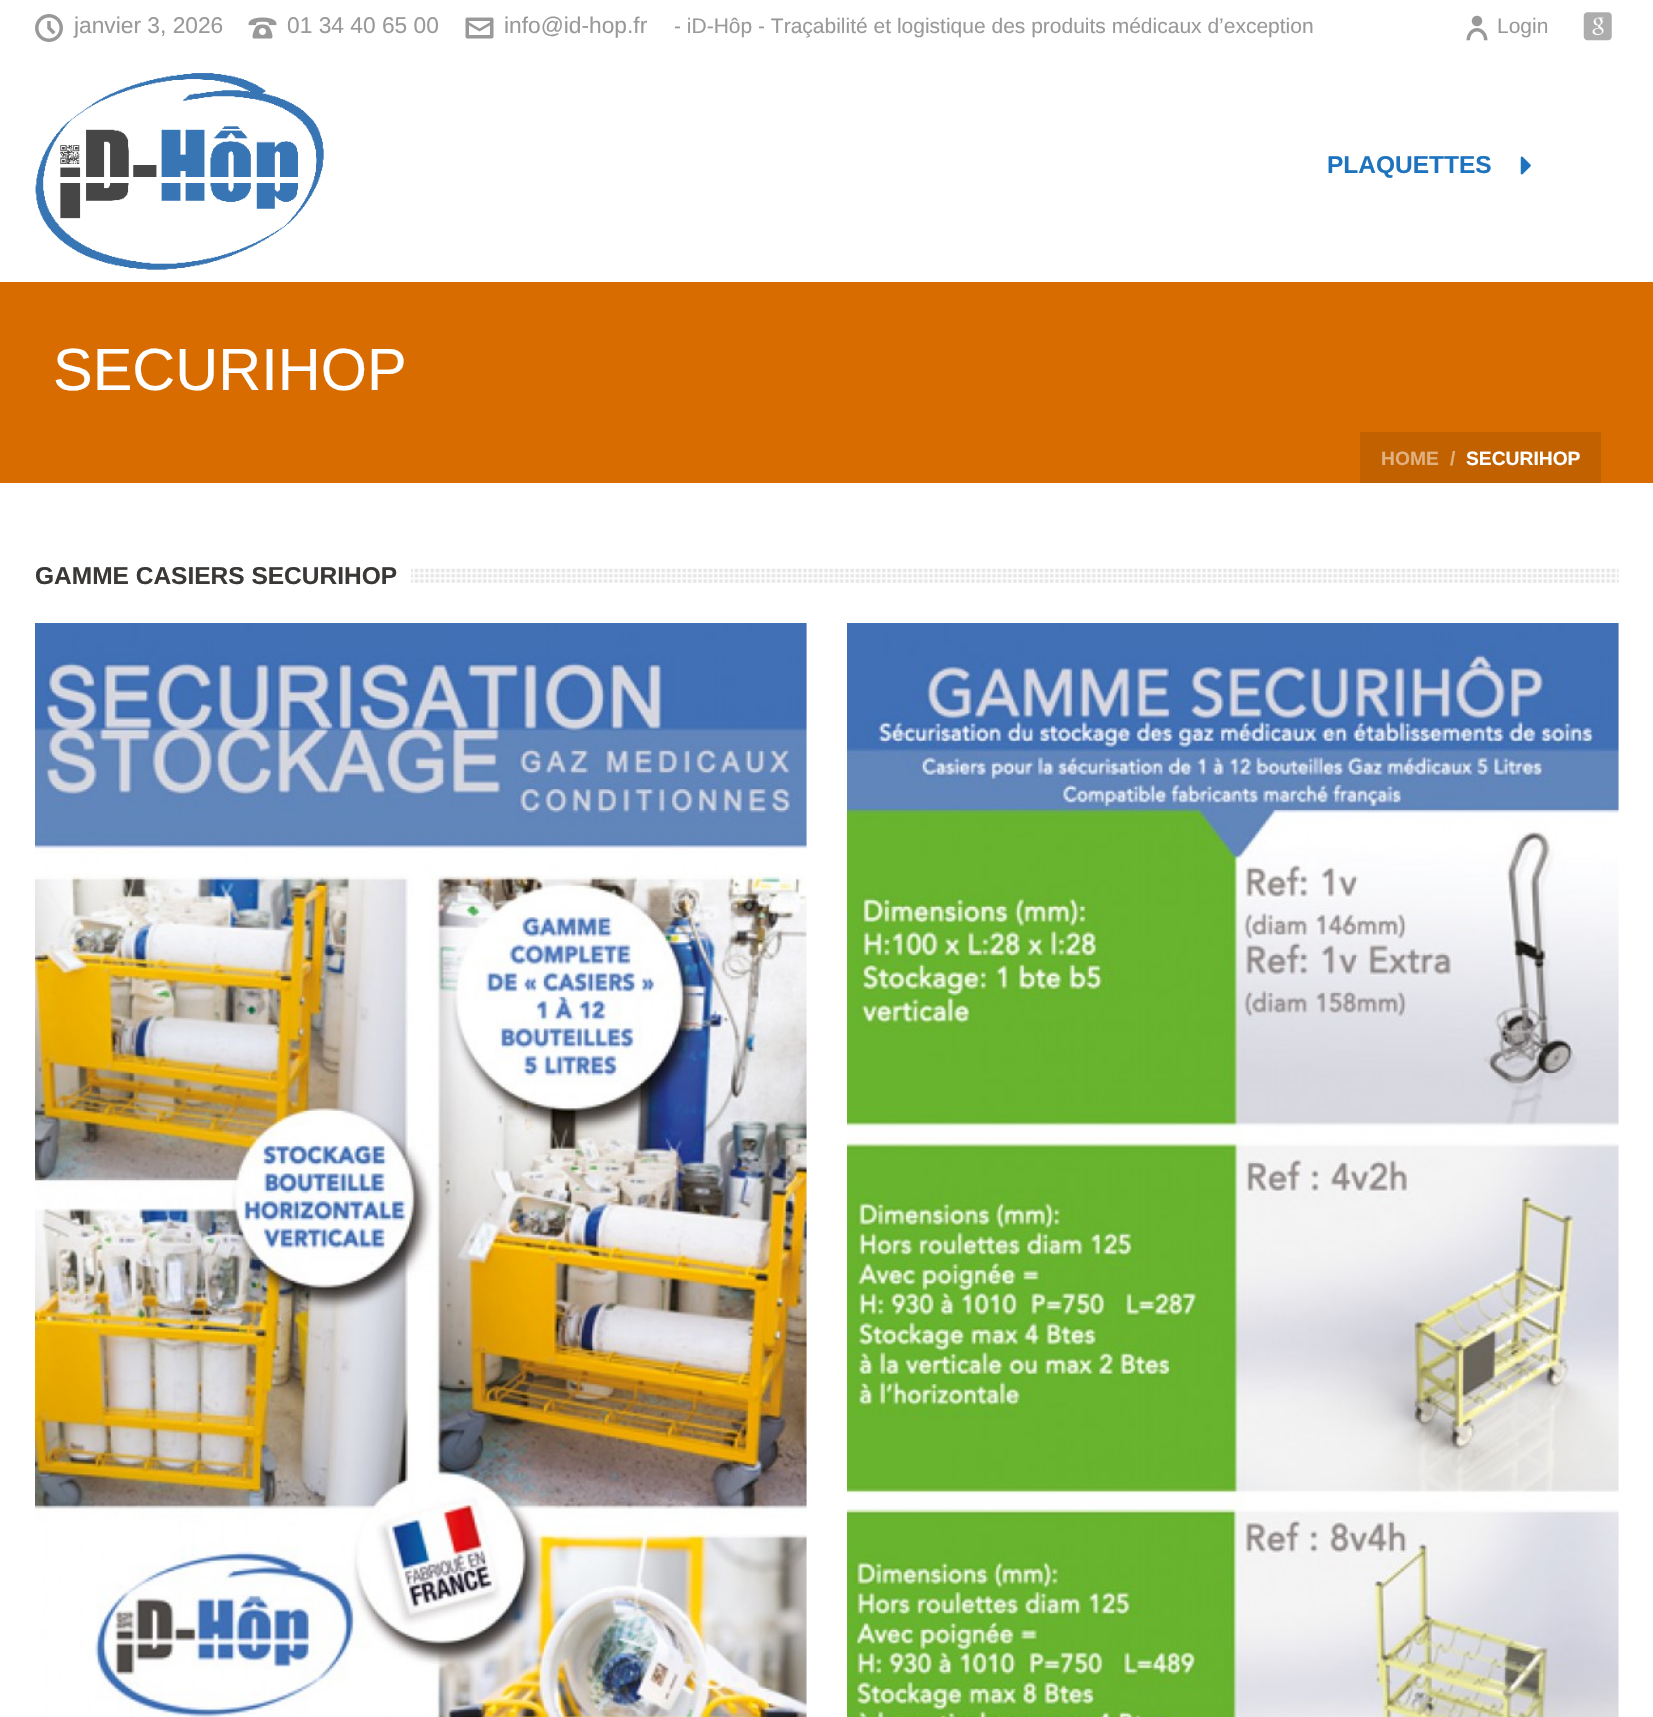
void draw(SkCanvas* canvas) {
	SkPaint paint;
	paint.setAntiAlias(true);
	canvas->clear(0xffffffff);
	paint.setColor(0xffd86c00);
	canvas->drawRect(SkRect::MakeXYWH(0, 282, 1653, 201), paint);
	canvas->drawImageRect(SkImages::DeferredFromEncodedData(SkData::MakeFromFileName("img1.png")), SkRect::MakeXYWH(35, 14, 28, 28), SkSamplingOptions());
	SkFont f1(fontMgr->matchFamilyStyle("Liberation Sans", SkFontStyle::Normal()), 22.75);
	f1.setSubpixel(true);
	paint.setColor(0xff999999);
	canvas->drawString("janvier 3, 2026", 74, 33, f1, paint);
	canvas->drawImageRect(SkImages::DeferredFromEncodedData(SkData::MakeFromFileName("img2.png")), SkRect::MakeXYWH(248, 17, 29, 22), SkSamplingOptions());
	canvas->drawString("01 34 40 65 00", 287, 33, f1, paint);
	canvas->drawImageRect(SkImages::DeferredFromEncodedData(SkData::MakeFromFileName("img3.png")), SkRect::MakeXYWH(465, 17, 29, 22), SkSamplingOptions());
	canvas->drawString("info@id-hop.fr", 504, 33, f1, paint);
	SkFont f2(fontMgr->matchFamilyStyle("Liberation Sans", SkFontStyle::Normal()), 21);
	f2.setSubpixel(true);
	canvas->drawString("- iD-Hôp - Traçabilité et logistique des produits médicaux d’exception", 674, 33, f2, paint);
	canvas->drawImageRect(SkImages::DeferredFromEncodedData(SkData::MakeFromFileName("img4.png")), SkRect::MakeXYWH(1466, 15, 22, 26), SkSamplingOptions());
	canvas->drawString("Login", 1497, 33, f2, paint);
	canvas->drawImageRect(SkImages::DeferredFromEncodedData(SkData::MakeFromFileName("img5.png")), SkRect::MakeXYWH(1583, 12, 29, 29), SkSamplingOptions());
	canvas->drawImageRect(SkImages::DeferredFromEncodedData(SkData::MakeFromFileName("img6.png")), SkRect::MakeXYWH(17, 53, 344, 217), SkSamplingOptions());
	SkFont f3(fontMgr->matchFamilyStyle("Liberation Sans", SkFontStyle::Bold()), 24.5);
	f3.setSubpixel(true);
	paint.setColor(0xff1e73be);
	canvas->drawString("PLAQUETTES", 1327, 173, f3, paint);
	canvas->drawImageRect(SkImages::DeferredFromEncodedData(SkData::MakeFromFileName("img7.png")), SkRect::MakeXYWH(1520, 156, 11, 19), SkSamplingOptions());
	SkFont f4(fontMgr->matchFamilyStyle("Liberation Sans", SkFontStyle::Normal()), 59.5);
	f4.setSubpixel(true);
	paint.setColor(0xffffffff);
	canvas->drawString("SECURIHOP", 53, 390, f4, paint);
	paint.setColor(0xffc26100);
	canvas->drawRect(SkRect::MakeXYWH(1360, 432, 241, 51), paint);
	SkFont f5(fontMgr->matchFamilyStyle("Liberation Sans", SkFontStyle::Bold()), 19.25);
	f5.setSubpixel(true);
	paint.setColor(0xffe1b080);
	canvas->drawString("HOME", 1381, 465, f5, paint);
	canvas->drawString("/", 1450, 465, f5, paint);
	paint.setColor(0xffffffff);
	canvas->drawString("SECURIHOP", 1466, 465, f5, paint);
	canvas->drawImageRect(SkImages::DeferredFromEncodedData(SkData::MakeFromFileName("img8.png")), SkRect::MakeXYWH(411, 568, 1208, 15), SkSamplingOptions());
	paint.setColor(0xff393836);
	canvas->drawString("GAMME CASIERS SECURIHOP", 35, 584, f3, paint);
	canvas->drawImageRect(SkImages::DeferredFromEncodedData(SkData::MakeFromFileName("img9.png")), SkRect::MakeXYWH(35, 623, 772, 1094), SkSamplingOptions());
	canvas->drawImageRect(SkImages::DeferredFromEncodedData(SkData::MakeFromFileName("img10.png")), SkRect::MakeXYWH(847, 623, 772, 1094), SkSamplingOptions());
}
